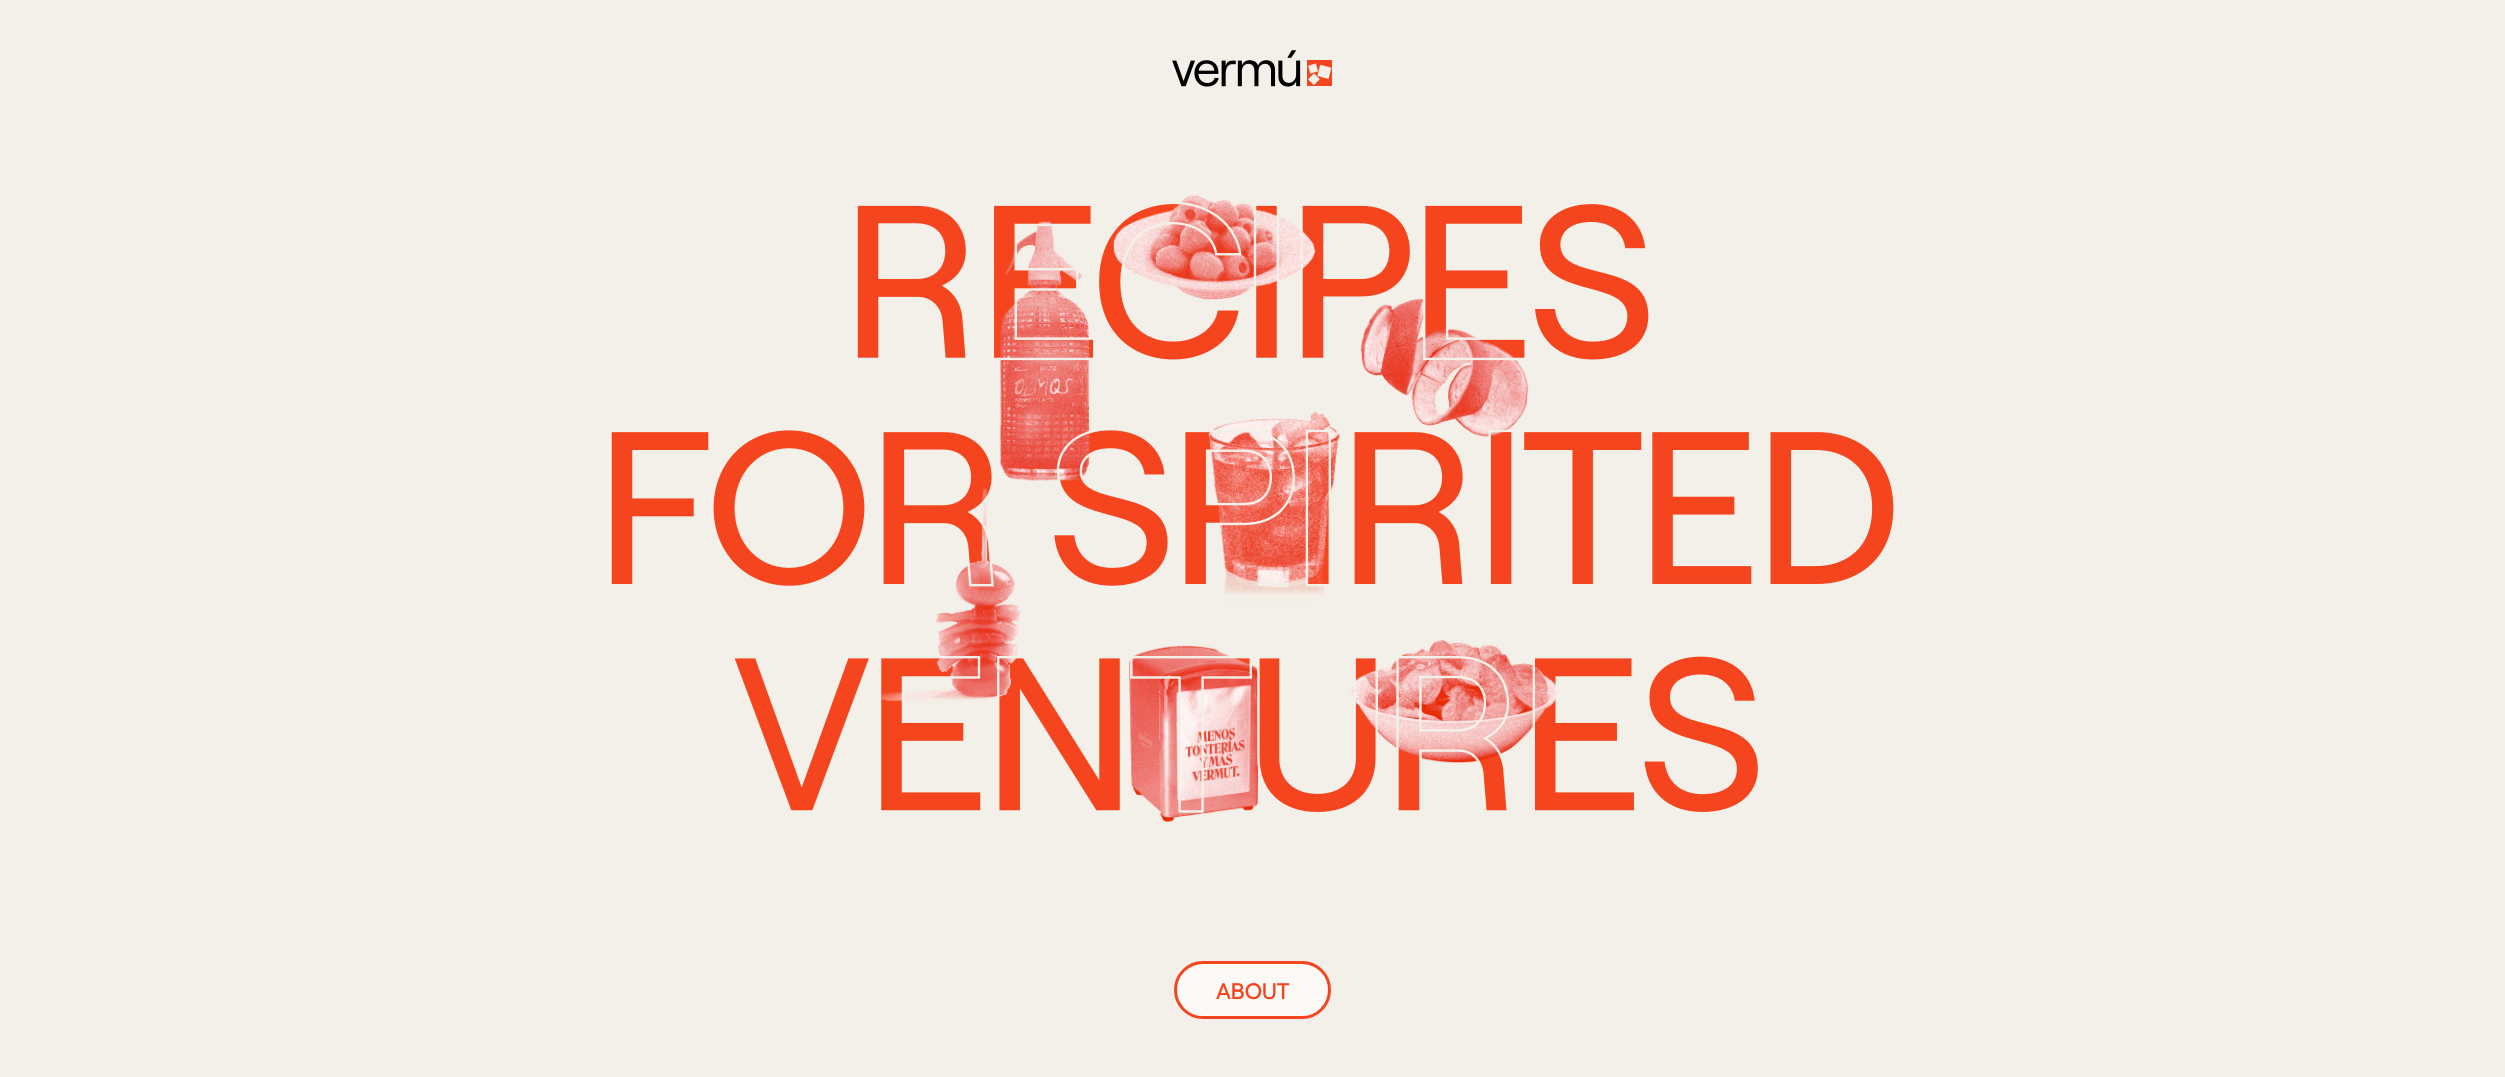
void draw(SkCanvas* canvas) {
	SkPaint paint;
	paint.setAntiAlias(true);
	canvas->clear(0xfff2f0e8);
	canvas->drawImageRect(SkImages::DeferredFromEncodedData(SkData::MakeFromFileName("img1.png")), SkRect::MakeXYWH(1172, 50, 160, 37), SkSamplingOptions());
	canvas->drawImageRect(SkImages::DeferredFromEncodedData(SkData::MakeFromFileName("img4.png")), SkRect::MakeXYWH(611, 204, 1283, 608), SkSamplingOptions());
	canvas->drawImageRect(SkImages::DeferredFromEncodedData(SkData::MakeFromFileName("img2.png")), SkRect::MakeXYWH(881, 195, 678, 627), SkSamplingOptions());
	canvas->drawImageRect(SkImages::DeferredFromEncodedData(SkData::MakeFromFileName("img3.png")), SkRect::MakeXYWH(610, 202, 1285, 612), SkSamplingOptions());
	paint.setColor(0xfffbfaf6);
	canvas->drawRoundRect(SkRect::MakeXYWH(1175.5, 962.5, 154, 55), 27.5, 27.5, paint);
	paint.setStroke(true);
	paint.setStrokeWidth(3);
	paint.setColor(0xfff5451f);
	canvas->drawRoundRect(SkRect::MakeXYWH(1175.5, 962.5, 154, 55), 27.5, 27.5, paint);
	SkFont f1(fontMgr->matchFamilyStyle("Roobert", SkFontStyle(500, SkFontStyle::kNormal_Width, SkFontStyle::kUpright_Slant)), 22.5);
	f1.setSubpixel(true);
	paint.setStroke(false);
	canvas->drawString("ABOUT", 1216, 999, f1, paint);
}
